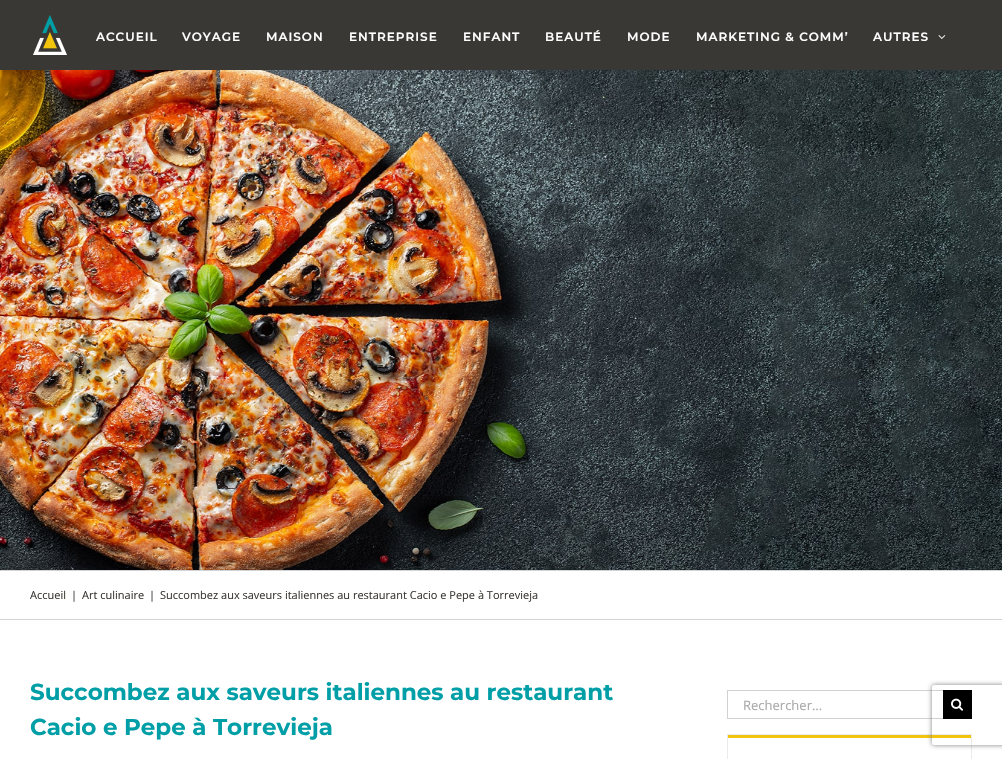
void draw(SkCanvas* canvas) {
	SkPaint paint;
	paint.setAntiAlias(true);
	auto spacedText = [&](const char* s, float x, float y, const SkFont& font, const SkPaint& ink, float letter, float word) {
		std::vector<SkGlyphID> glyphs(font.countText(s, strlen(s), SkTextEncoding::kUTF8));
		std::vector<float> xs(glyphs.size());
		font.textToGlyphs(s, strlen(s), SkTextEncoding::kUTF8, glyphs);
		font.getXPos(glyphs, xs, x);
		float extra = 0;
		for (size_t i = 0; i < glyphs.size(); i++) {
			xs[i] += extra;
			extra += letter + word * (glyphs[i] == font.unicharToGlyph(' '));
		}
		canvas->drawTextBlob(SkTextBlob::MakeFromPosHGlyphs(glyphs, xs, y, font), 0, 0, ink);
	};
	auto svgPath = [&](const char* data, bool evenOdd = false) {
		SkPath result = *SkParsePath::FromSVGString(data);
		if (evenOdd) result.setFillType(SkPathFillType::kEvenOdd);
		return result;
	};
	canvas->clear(0xffffffff);
	paint.setColor(0xff3a3834);
	canvas->drawRect(SkRect::MakeXYWH(0, 0, 1002, 70), paint);
	canvas->drawImageRect(SkImages::DeferredFromEncodedData(SkData::MakeFromFileName("img1.png")), SkRect::MakeXYWH(33, 15, 34, 40), SkSamplingOptions());
	SkFont f1(fontMgr->matchFamilyStyle("Montserrat", SkFontStyle(600, SkFontStyle::kNormal_Width, SkFontStyle::kUpright_Slant)), 12);
	f1.setSubpixel(true);
	paint.setColor(0xffffffff);
	spacedText("ACCUEIL", 96, 41, f1, paint, 1, 0);
	spacedText("VOYAGE", 182, 41, f1, paint, 1, 0);
	spacedText("MAISON", 266, 41, f1, paint, 1, 0);
	spacedText("ENTREPRISE", 349, 41, f1, paint, 1, 0);
	spacedText("ENFANT", 463, 41, f1, paint, 1, 0);
	spacedText("BEAUTÉ", 545, 41, f1, paint, 1, 0);
	spacedText("MODE", 627, 41, f1, paint, 1, 0);
	spacedText("MARKETING & COMM’", 696, 41, f1, paint, 1, 0);
	spacedText("AUTRES", 873, 41, f1, paint, 1, 0);
	canvas->drawImageRect(SkImages::DeferredFromEncodedData(SkData::MakeFromFileName("img2.png")), SkRect::MakeXYWH(938, 35, 8, 4), SkSamplingOptions());
	canvas->drawImageRect(SkImages::DeferredFromEncodedData(SkData::MakeFromFileName("img3.png")), SkRect::MakeXYWH(0, 70, 1002, 500), SkSamplingOptions());
	paint.setColor(0xffd2d3d4);
	canvas->drawRect(SkRect::MakeXYWH(0, 570, 1002, 1), paint);
	canvas->drawRect(SkRect::MakeXYWH(0, 619, 1002, 1), paint);
	SkFont f2(fontMgr->matchFamilyStyle("Open Sans", SkFontStyle::Normal()), 11);
	f2.setSubpixel(true);
	paint.setColor(0xff3a3834);
	canvas->drawString("Accueil", 30, 599, f2, paint);
	canvas->drawString("|", 71, 599, f2, paint);
	canvas->drawString("Art culinaire", 82, 599, f2, paint);
	canvas->drawString("|", 149, 599, f2, paint);
	canvas->drawString("Succombez aux saveurs italiennes au restaurant Cacio e Pepe à Torrevieja", 160, 599, f2, paint);
	SkFont f3(fontMgr->matchFamilyStyle("Montserrat", SkFontStyle::Bold()), 23);
	f3.setSubpixel(true);
	paint.setColor(0xff009ea6);
	canvas->drawString("Succombez aux saveurs italiennes au restaurant", 30, 700, f3, paint);
	canvas->drawString("Cacio e Pepe à Torrevieja", 30, 735, f3, paint);
	paint.setColor(0xffd2d2d2);
	canvas->drawRect(SkRect::MakeXYWH(727, 690, 216, 1), paint);
	canvas->drawRect(SkRect::MakeXYWH(727, 718, 216, 1), paint);
	canvas->drawRect(SkRect::MakeXYWH(727, 690, 1, 29), paint);
	SkFont f4(fontMgr->matchFamilyStyle("Open Sans", SkFontStyle::Normal()), 13);
	f4.setSubpixel(true);
	paint.setColor(0xffaaa9a9);
	canvas->drawString("Rechercher...", 743, 710, f4, paint);
	paint.setColor(0xff000000);
	canvas->drawRect(SkRect::MakeXYWH(943, 690, 29, 29), paint);
	canvas->drawImageRect(SkImages::DeferredFromEncodedData(SkData::MakeFromFileName("img4.png")), SkRect::MakeXYWH(951, 698, 12, 13), SkSamplingOptions());
	paint.setStroke(true);
	paint.setStrokeWidth(1);
	paint.setColor(0xffebeaea);
	canvas->drawRect(SkRect::MakeXYWH(727.5, 734.5, 244, 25), paint);
	paint.setStroke(false);
	paint.setColor(0xfff2c40c);
	canvas->drawRect(SkRect::MakeXYWH(728, 735, 243, 3), paint);
	canvas->save();
	canvas->clipPath(svgPath("M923 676H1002V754H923ZM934 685H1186C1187 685 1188 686 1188 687V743C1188 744 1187 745 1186 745H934C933 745 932 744 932 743V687C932 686 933 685 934 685Z", true), true);
	paint.setColor(0xff808080);
	paint.setMaskFilter(SkMaskFilter::MakeBlur(kNormal_SkBlurStyle, 2.5));
	canvas->drawRoundRect(SkRect::MakeXYWH(932, 685, 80, 60), 2, 2, paint);
	paint.setMaskFilter(nullptr);
	canvas->restore();
}
